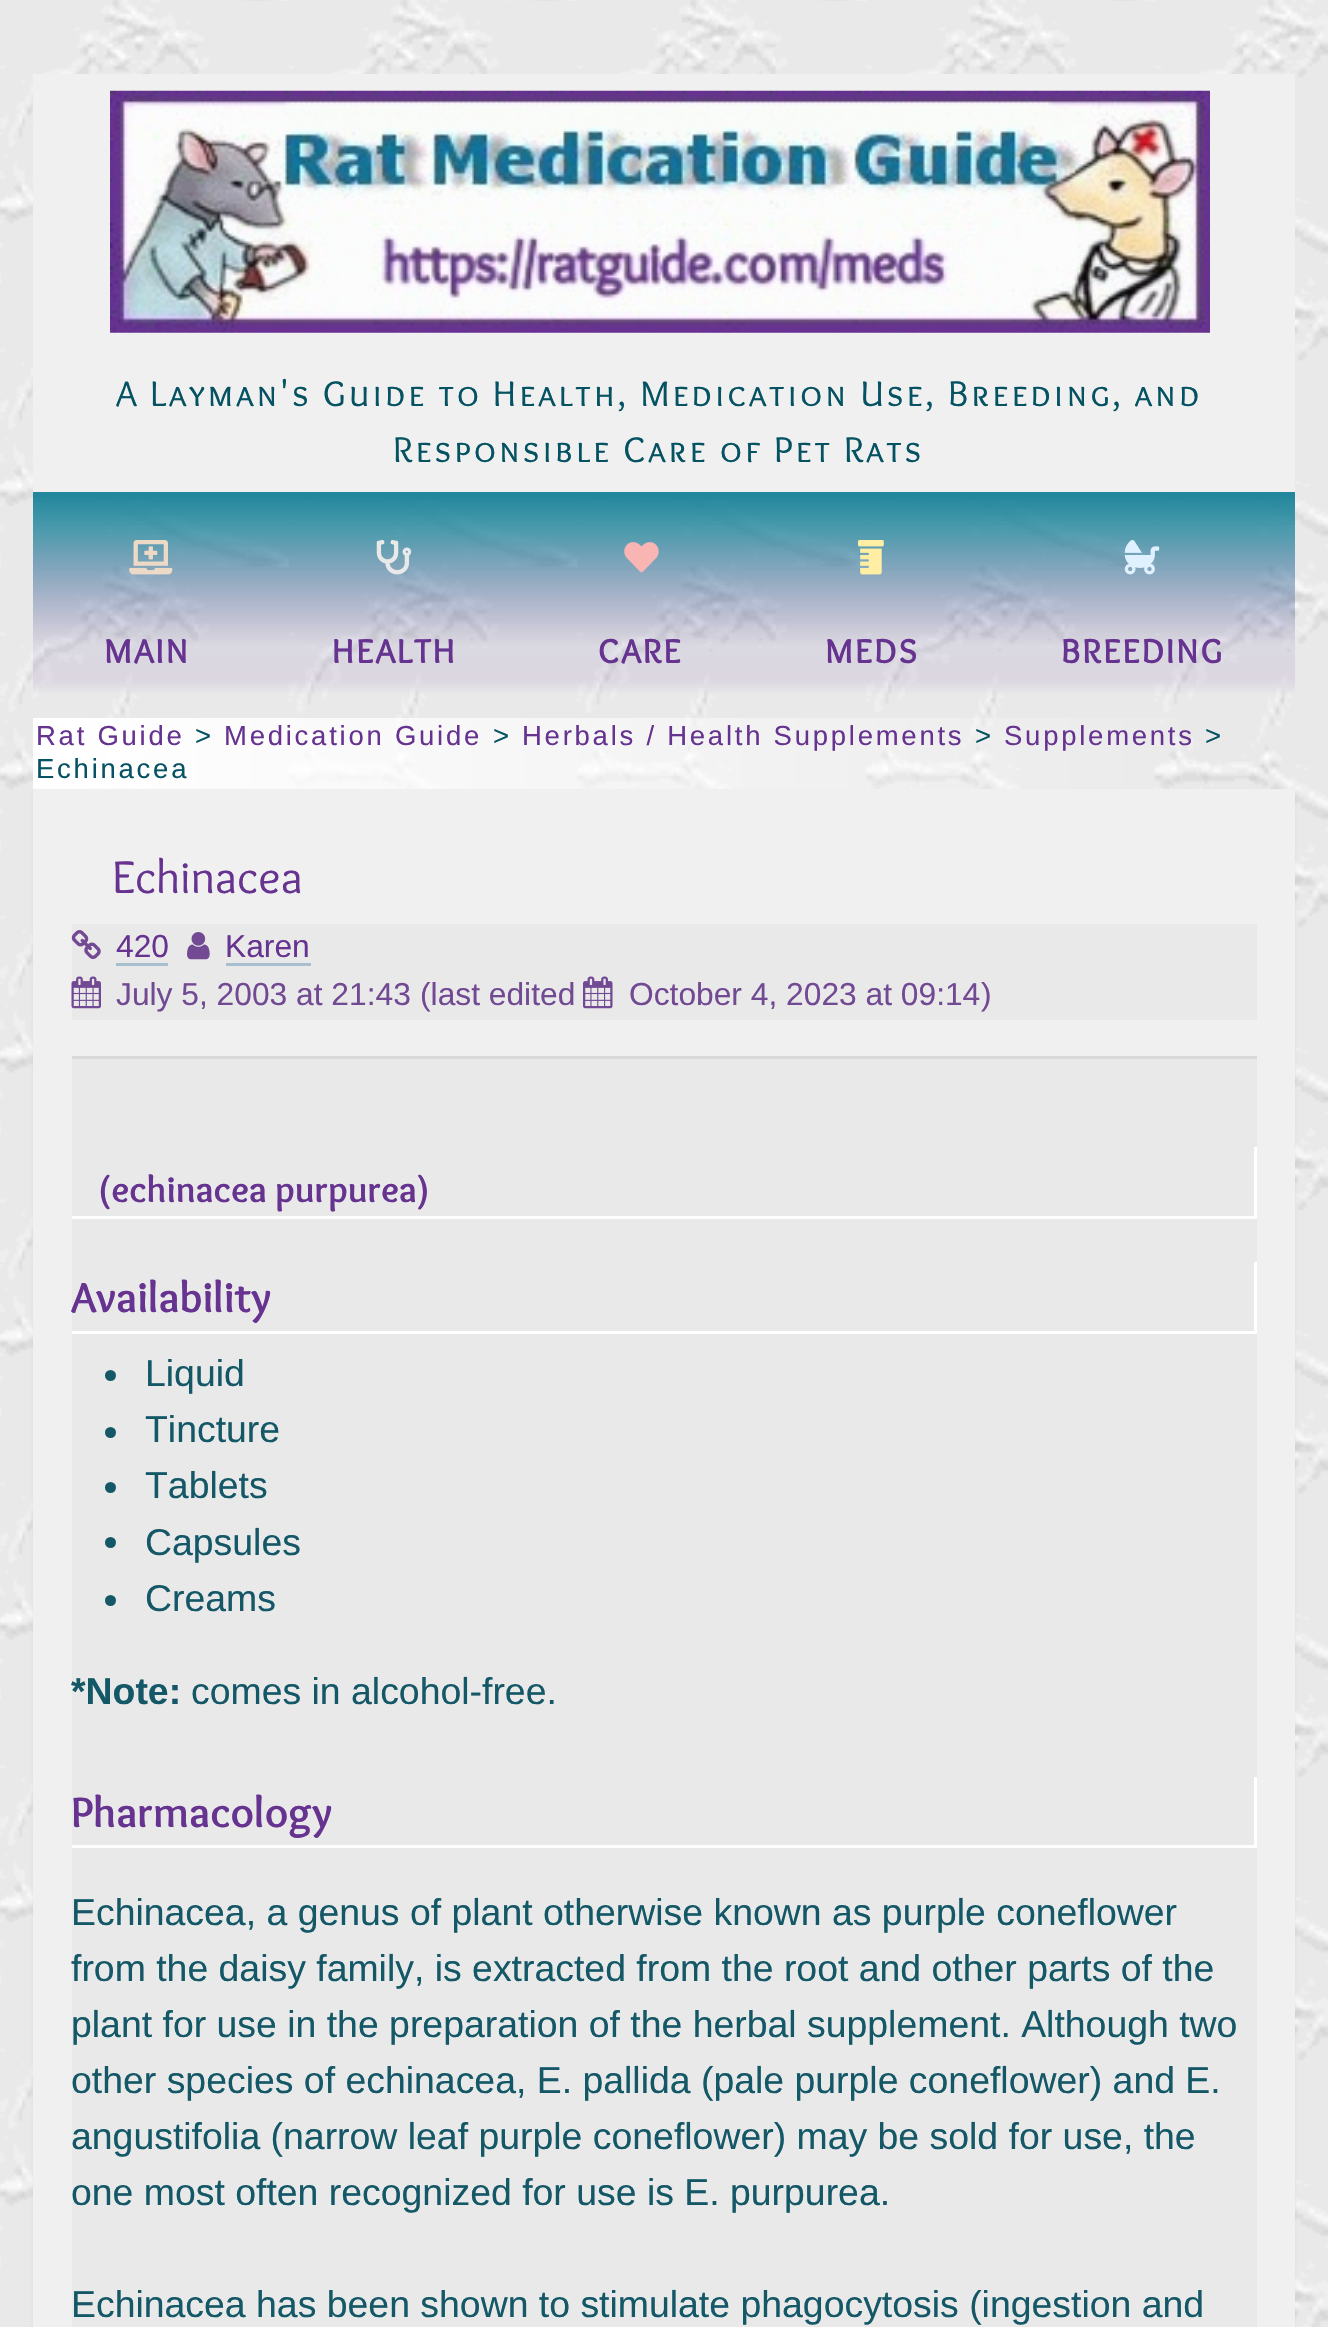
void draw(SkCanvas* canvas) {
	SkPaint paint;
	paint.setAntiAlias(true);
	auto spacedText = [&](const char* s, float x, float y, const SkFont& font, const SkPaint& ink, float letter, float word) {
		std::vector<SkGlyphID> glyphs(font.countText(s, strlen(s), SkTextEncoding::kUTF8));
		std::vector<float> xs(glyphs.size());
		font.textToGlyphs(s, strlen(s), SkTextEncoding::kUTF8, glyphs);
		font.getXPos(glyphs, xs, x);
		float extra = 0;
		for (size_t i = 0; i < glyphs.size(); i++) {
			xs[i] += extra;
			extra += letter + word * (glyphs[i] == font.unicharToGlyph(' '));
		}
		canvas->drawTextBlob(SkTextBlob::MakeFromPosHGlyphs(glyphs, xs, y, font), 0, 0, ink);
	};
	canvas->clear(0xffe9e9e9);
	canvas->drawImageRect(SkImages::DeferredFromEncodedData(SkData::MakeFromFileName("img1.png")), SkRect::MakeXYWH(0, 0, 1328, 2327), SkSamplingOptions());
	paint.setColor(0xfff0f0f0);
	canvas->drawRect(SkRect::MakeXYWH(33, 74, 1262, 418), paint);
	canvas->drawImageRect(SkImages::DeferredFromEncodedData(SkData::MakeFromFileName("img2.png")), SkRect::MakeXYWH(110, 90, 1100, 243), SkSamplingOptions());
	SkFont f1(fontMgr->matchFamilyStyle("Overlock SC", SkFontStyle::Normal()), 36.9);
	f1.setSubpixel(true);
	paint.setColor(0xff055262);
	spacedText("A Layman's Guide to Health, Medication Use, Breeding, and", 116, 406, f1, paint, 2.75, 0);
	spacedText("Responsible Care of Pet Rats", 393, 462, f1, paint, 2.75, 0);
	{
		const SkColor colors[] = {0xfc1f859b, 0xc71f859b, 0x1a564693, 0x1a663390, 0x1ae9e9e9};
		const float stops[] = {0.01, 0.17, 0.68, 0.83, 0.9};
		const SkPoint ends[] = {{664, 492}, {664, 718}};
		paint.setShader(SkGradientShader::MakeLinear(ends, colors, stops, 5, SkTileMode::kClamp));
		paint.setAlpha(255);
	}
	canvas->drawRect(SkRect::MakeXYWH(33, 492, 1262, 202), paint);
	canvas->drawImageRect(SkImages::DeferredFromEncodedData(SkData::MakeFromFileName("img3.png")), SkRect::MakeXYWH(129, 540, 44, 35), SkSamplingOptions());
	SkFont f2(fontMgr->matchFamilyStyle("Overlock SC", SkFontStyle::Bold()), 34.5);
	f2.setSubpixel(true);
	paint.setShader(nullptr);
	paint.setColor(0xff663390);
	spacedText("MAIN", 104, 663, f2, paint, 2.5, 0);
	canvas->drawImageRect(SkImages::DeferredFromEncodedData(SkData::MakeFromFileName("img4.png")), SkRect::MakeXYWH(376, 540, 36, 35), SkSamplingOptions());
	spacedText("HEALTH", 332, 663, f2, paint, 2.5, 0);
	canvas->drawImageRect(SkImages::DeferredFromEncodedData(SkData::MakeFromFileName("img5.png")), SkRect::MakeXYWH(624, 542, 35, 31), SkSamplingOptions());
	spacedText("CARE", 598, 663, f2, paint, 2.5, 0);
	canvas->drawImageRect(SkImages::DeferredFromEncodedData(SkData::MakeFromFileName("img6.png")), SkRect::MakeXYWH(858, 540, 26, 35), SkSamplingOptions());
	spacedText("MEDS", 825, 663, f2, paint, 2.5, 0);
	canvas->drawImageRect(SkImages::DeferredFromEncodedData(SkData::MakeFromFileName("img7.png")), SkRect::MakeXYWH(1124, 540, 36, 35), SkSamplingOptions());
	spacedText("BREEDING", 1061, 663, f2, paint, 2.5, 0);
	{
		const SkColor colors[] = {0xffffffff, 0x00ffffff};
		const float stops[] = {0, 1};
		const SkPoint ends[] = {{33, 754}, {1282, 754}};
		paint.setShader(SkGradientShader::MakeLinear(ends, colors, stops, 2, SkTileMode::kClamp));
		paint.setAlpha(255);
	}
	canvas->drawRect(SkRect::MakeXYWH(33, 718, 1149, 71), paint);
	SkFont f3(fontMgr->matchFamilyStyle("Liberation Sans", SkFontStyle::Normal()), 27.5);
	f3.setSubpixel(true);
	paint.setShader(nullptr);
	paint.setColor(0xff663390);
	spacedText("Rat Guide", 36, 745, f3, paint, 2.75, 0);
	paint.setColor(0xff055262);
	spacedText(">", 195, 745, f3, paint, 2.75, 0);
	paint.setColor(0xff663390);
	spacedText("Medication Guide", 224, 745, f3, paint, 2.75, 0);
	paint.setColor(0xff055262);
	spacedText(">", 493, 745, f3, paint, 2.75, 0);
	paint.setColor(0xff663390);
	spacedText("Herbals / Health Supplements", 522, 745, f3, paint, 2.75, 0);
	paint.setColor(0xff055262);
	spacedText(">", 975, 745, f3, paint, 2.75, 0);
	paint.setColor(0xff663390);
	spacedText("Supplements", 1004, 745, f3, paint, 2.75, 0);
	paint.setColor(0xff055262);
	spacedText(">", 1205, 745, f3, paint, 2.75, 0);
	spacedText("Echinacea", 36, 778, f3, paint, 2.75, 0);
	paint.setColor(0x0f000000);
	paint.setMaskFilter(SkMaskFilter::MakeBlur(kNormal_SkBlurStyle, 1.5));
	canvas->drawRect(SkRect::MakeXYWH(33, 792, 1262, 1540), paint);
	paint.setMaskFilter(nullptr);
	paint.setColor(0xfff0f0f0);
	canvas->drawRect(SkRect::MakeXYWH(33, 789, 1262, 1538), paint);
	SkFont f4(fontMgr->matchFamilyStyle("Overlock", SkFontStyle::Normal()), 47.5);
	f4.setSubpixel(true);
	paint.setColor(0xff663390);
	canvas->drawString("Echinacea", 112, 893, f4, paint);
	paint.setColor(0xffe9e9e9);
	canvas->drawRect(SkRect::MakeXYWH(72, 924, 1185, 96), paint);
	canvas->drawImageRect(SkImages::DeferredFromEncodedData(SkData::MakeFromFileName("img8.png")), SkRect::MakeXYWH(71, 930, 30, 29), SkSamplingOptions());
	SkFont f5(fontMgr->matchFamilyStyle("Liberation Sans", SkFontStyle::Normal()), 31.75);
	f5.setSubpixel(true);
	paint.setColor(0xff663390);
	canvas->drawString("420", 116, 957, f5, paint);
	paint.setColor(0xffa8bfcf);
	canvas->drawRect(SkRect::MakeXYWH(116, 963, 52, 3), paint);
	canvas->drawImageRect(SkImages::DeferredFromEncodedData(SkData::MakeFromFileName("img9.png")), SkRect::MakeXYWH(187, 932, 23, 28), SkSamplingOptions());
	paint.setColor(0xff663390);
	canvas->drawString("Karen", 225, 957, f5, paint);
	paint.setColor(0xffa8bfcf);
	canvas->drawRect(SkRect::MakeXYWH(226, 963, 85, 3), paint);
	canvas->drawImageRect(SkImages::DeferredFromEncodedData(SkData::MakeFromFileName("img10.png")), SkRect::MakeXYWH(71, 976, 30, 33), SkSamplingOptions());
	paint.setColor(0xff724993);
	canvas->drawString("July 5, 2003 at 21:43", 116, 1005, f5, paint);
	canvas->drawString("(last edited", 420, 1005, f5, paint);
	canvas->drawImageRect(SkImages::DeferredFromEncodedData(SkData::MakeFromFileName("img11.png")), SkRect::MakeXYWH(583, 976, 30, 33), SkSamplingOptions());
	canvas->drawString("October 4, 2023 at 09:14", 629, 1005, f5, paint);
	canvas->drawString(")", 981, 1005, f5, paint);
	paint.setColor(0xffe9e9e9);
	canvas->drawRect(SkRect::MakeXYWH(72, 1059, 1185, 1268), paint);
	paint.setColor(0xffd9d9d9);
	canvas->drawRect(SkRect::MakeXYWH(72, 1056, 1185, 3), paint);
	paint.setColor(0xffffffff);
	canvas->drawRect(SkRect::MakeXYWH(1254, 1147, 3, 71), paint);
	canvas->drawRect(SkRect::MakeXYWH(72, 1216, 1185, 3), paint);
	SkFont f6(fontMgr->matchFamilyStyle("Overlock", SkFontStyle::Bold()), 37.4);
	f6.setSubpixel(true);
	paint.setColor(0xff663390);
	canvas->drawString("(echinacea purpurea)", 98, 1202, f6, paint);
	paint.setColor(0xffffffff);
	canvas->drawRect(SkRect::MakeXYWH(1254, 1262, 3, 72), paint);
	canvas->drawRect(SkRect::MakeXYWH(72, 1331, 1185, 3), paint);
	SkFont f7(fontMgr->matchFamilyStyle("Overlock", SkFontStyle::Bold()), 43.75);
	f7.setSubpixel(true);
	paint.setColor(0xff663390);
	canvas->drawString("Availability", 71, 1312, f7, paint);
	paint.setColor(0xff145867);
	canvas->drawCircle(110.5, 1375.5, 5.5, paint);
	SkFont f8(fontMgr->matchFamilyStyle("Liberation Sans", SkFontStyle::Normal()), 37.4);
	f8.setSubpixel(true);
	canvas->drawString("Liquid", 145, 1386, f8, paint);
	canvas->drawCircle(110.5, 1432.5, 5.5, paint);
	canvas->drawString("Tincture", 145, 1442, f8, paint);
	canvas->drawCircle(110.5, 1487.5, 5.5, paint);
	canvas->drawString("Tablets", 145, 1498, f8, paint);
	canvas->drawCircle(110.5, 1542.5, 5.5, paint);
	canvas->drawString("Capsules", 145, 1555, f8, paint);
	canvas->drawCircle(110.5, 1600.5, 5.5, paint);
	canvas->drawString("Creams", 145, 1611, f8, paint);
	SkFont f9(fontMgr->matchFamilyStyle("Liberation Sans", SkFontStyle::Bold()), 37.4);
	f9.setSubpixel(true);
	canvas->drawString("*Note:", 71, 1704, f9, paint);
	canvas->drawString("comes in alcohol-free.", 191, 1704, f8, paint);
	paint.setColor(0xffffffff);
	canvas->drawRect(SkRect::MakeXYWH(1254, 1777, 3, 71), paint);
	canvas->drawRect(SkRect::MakeXYWH(72, 1845, 1185, 3), paint);
	paint.setColor(0xff663390);
	canvas->drawString("Pharmacology", 71, 1827, f7, paint);
	paint.setColor(0xff145867);
	canvas->drawString("Echinacea, a genus of plant otherwise known as purple coneflower", 71, 1925, f8, paint);
	canvas->drawString("from the daisy family, is extracted from the root and other parts of the", 71, 1981, f8, paint);
	canvas->drawString("plant for use in the preparation of the herbal supplement. Although two", 71, 2037, f8, paint);
	canvas->drawString("other species of echinacea, E. pallida (pale purple coneflower) and E.", 71, 2093, f8, paint);
	canvas->drawString("angustifolia (narrow leaf purple coneflower) may be sold for use, the", 71, 2149, f8, paint);
	canvas->drawString("one most often recognized for use is E. purpurea.", 71, 2205, f8, paint);
	canvas->drawString("Echinacea has been shown to stimulate phagocytosis (ingestion and", 71, 2317, f8, paint);
}
